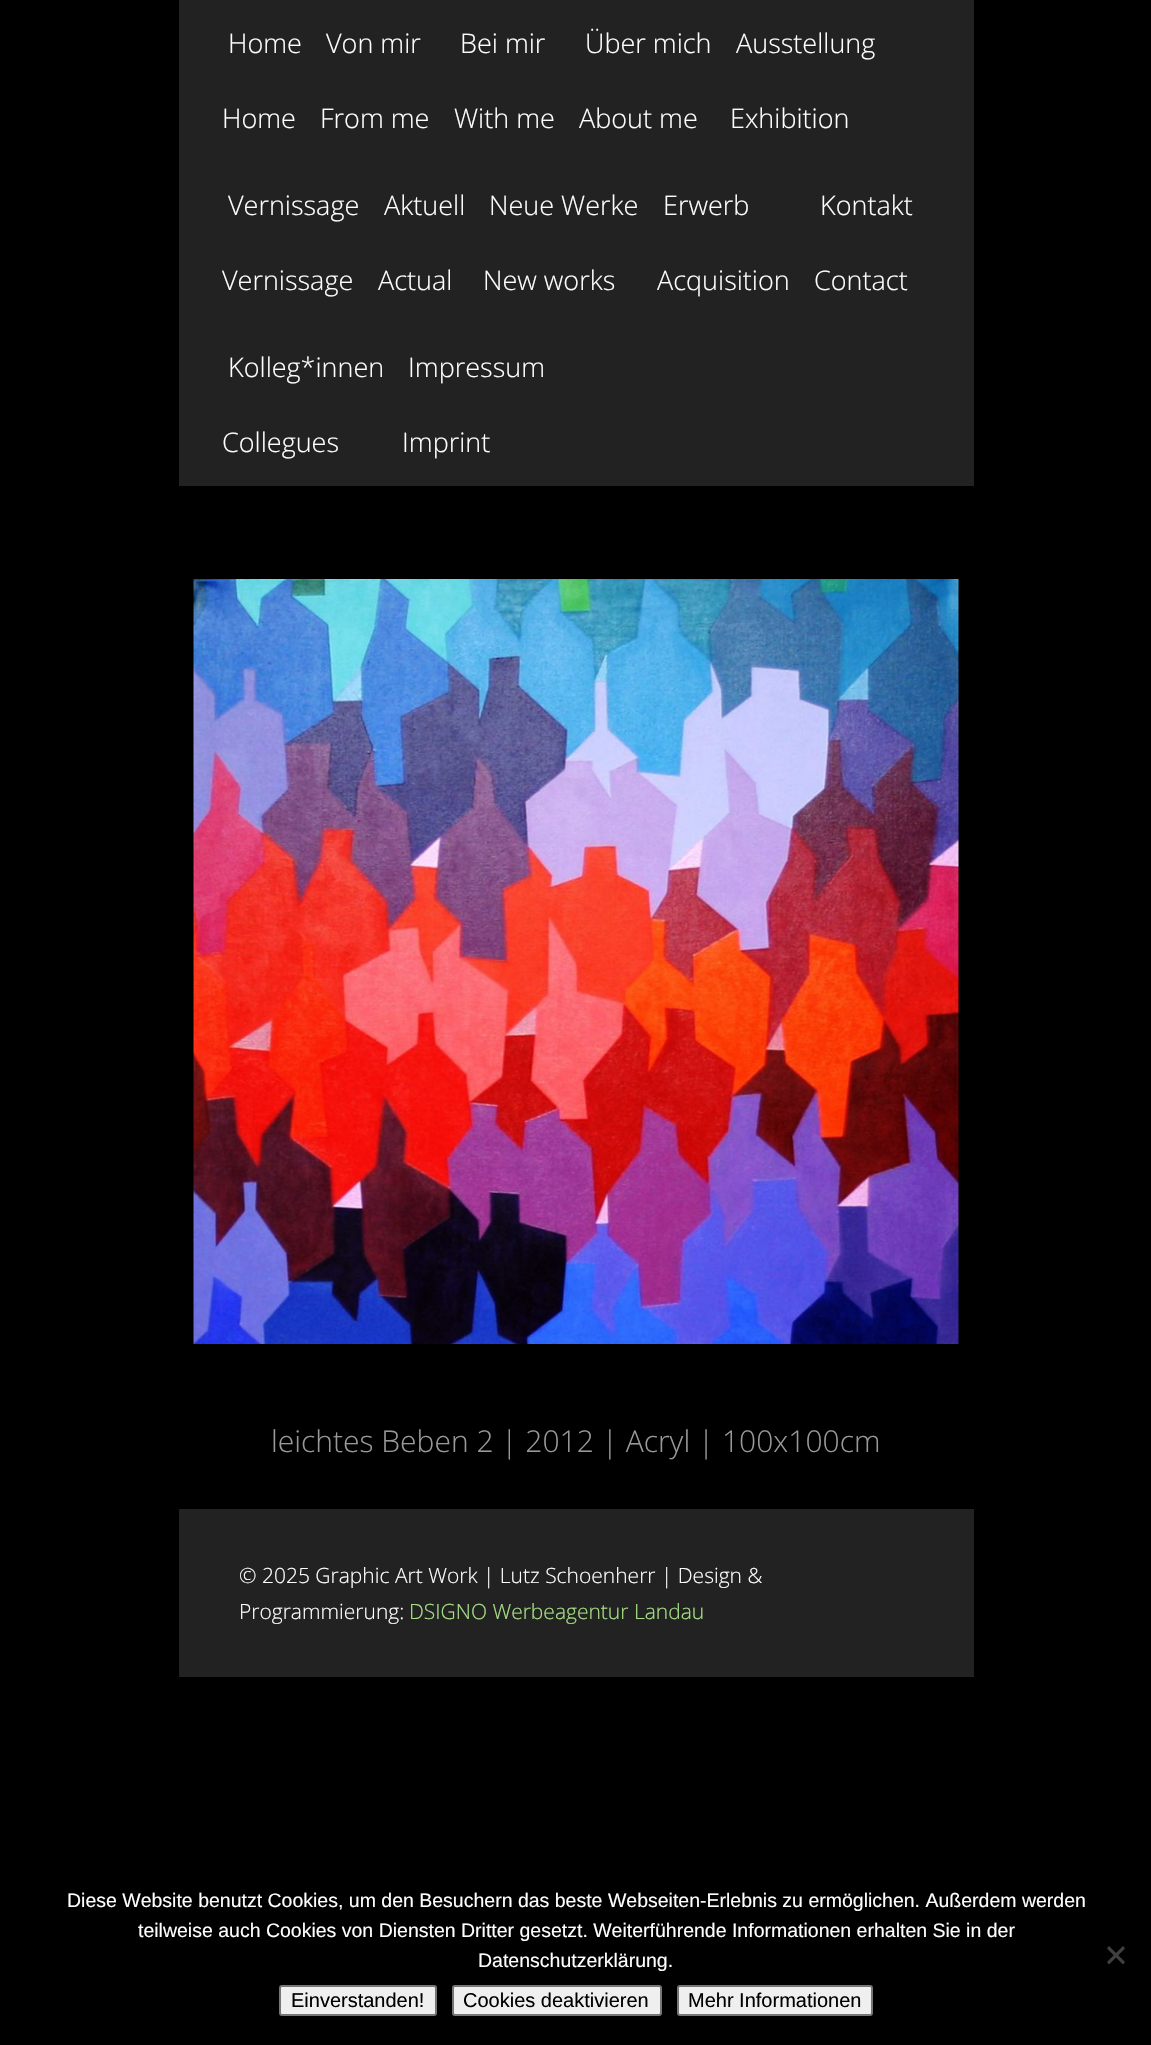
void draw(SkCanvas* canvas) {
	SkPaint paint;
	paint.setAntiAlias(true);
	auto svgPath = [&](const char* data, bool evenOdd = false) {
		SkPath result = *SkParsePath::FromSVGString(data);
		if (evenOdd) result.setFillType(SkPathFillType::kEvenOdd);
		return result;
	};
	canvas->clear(0xff000000);
	paint.setColor(0xff222222);
	canvas->drawRect(SkRect::MakeXYWH(179, 0, 795, 486), paint);
	SkFont f1(fontMgr->matchFamilyStyle("Open Sans", SkFontStyle(300, SkFontStyle::kNormal_Width, SkFontStyle::kUpright_Slant)), 27);
	f1.setSubpixel(true);
	paint.setColor(0xffffffff);
	canvas->drawString("Home", 228, 53, f1, paint);
	canvas->drawString("Home", 222, 128, f1, paint);
	canvas->drawString("Von mir", 326, 53, f1, paint);
	canvas->drawString("From me", 320, 128, f1, paint);
	canvas->drawString("Bei mir", 460, 53, f1, paint);
	canvas->drawString("With me", 454, 128, f1, paint);
	canvas->drawString("Über mich", 585, 53, f1, paint);
	canvas->drawString("About me", 579, 128, f1, paint);
	canvas->drawString("Ausstellung", 736, 53, f1, paint);
	canvas->drawString("Exhibition", 730, 128, f1, paint);
	canvas->drawString("Vernissage", 228, 215, f1, paint);
	canvas->drawString("Vernissage", 222, 290, f1, paint);
	canvas->drawString("Aktuell", 384, 215, f1, paint);
	canvas->drawString("Actual", 378, 290, f1, paint);
	canvas->drawString("Neue Werke", 489, 215, f1, paint);
	canvas->drawString("New works", 483, 290, f1, paint);
	canvas->drawString("Erwerb", 663, 215, f1, paint);
	canvas->drawString("Acquisition", 657, 290, f1, paint);
	canvas->drawString("Kontakt", 820, 215, f1, paint);
	canvas->drawString("Contact", 814, 290, f1, paint);
	canvas->drawString("Kolleg*innen", 228, 377, f1, paint);
	canvas->drawString("Collegues", 222, 452, f1, paint);
	canvas->drawString("Impressum", 408, 377, f1, paint);
	canvas->drawString("Imprint", 402, 452, f1, paint);
	canvas->drawImageRect(SkImages::DeferredFromEncodedData(SkData::MakeFromFileName("img1.png")), SkRect::MakeXYWH(193, 579, 766, 765), SkSamplingOptions());
	SkFont f2(fontMgr->matchFamilyStyle("Open Sans", SkFontStyle(300, SkFontStyle::kNormal_Width, SkFontStyle::kUpright_Slant)), 30);
	f2.setSubpixel(true);
	paint.setColor(0xff999999);
	canvas->drawString("leichtes Beben 2 | 2012 | Acryl | 100x100cm", 271, 1452, f2, paint);
	paint.setColor(0xff222222);
	canvas->drawRect(SkRect::MakeXYWH(179, 1509, 795, 168), paint);
	SkFont f3(fontMgr->matchFamilyStyle("Open Sans", SkFontStyle(300, SkFontStyle::kNormal_Width, SkFontStyle::kUpright_Slant)), 21);
	f3.setSubpixel(true);
	paint.setColor(0xffffffff);
	canvas->drawString("© 2025 Graphic Art Work | Lutz Schoenherr | Design &", 239, 1583, f3, paint);
	canvas->drawString("Programmierung:", 239, 1619, f3, paint);
	paint.setColor(0xffa7e085);
	canvas->drawString("DSIGNO Werbeagentur Landau", 409, 1619, f3, paint);
	SkFont f4(fontMgr->matchFamilyStyle("Liberation Sans", SkFontStyle::Normal()), 19.5);
	f4.setSubpixel(true);
	paint.setColor(0xffffffff);
	canvas->drawString("Diese Website benutzt Cookies, um den Besuchern das beste Webseiten-Erlebnis zu ermöglichen. Außerdem werden", 67, 1907, f4, paint);
	canvas->drawString("teilweise auch Cookies von Diensten Dritter gesetzt. Weiterführende Informationen erhalten Sie in der", 138, 1937, f4, paint);
	canvas->drawString("Datenschutzerklärung.", 478, 1967, f4, paint);
	paint.setColor(0xff404040);
	canvas->drawPath(svgPath("M1123 1946L1125 1948.5L1109 1964.5L1107 1962Z"), paint);
	canvas->drawPath(svgPath("M1107 1948.5L1109 1946L1125 1962L1123 1964.5Z"), paint);
	paint.setColor(0xffefefef);
	canvas->drawRoundRect(SkRect::MakeXYWH(280, 1986, 156, 29), 2, 2, paint);
	paint.setStroke(true);
	paint.setStrokeWidth(2);
	paint.setColor(0xff767676);
	canvas->drawRoundRect(SkRect::MakeXYWH(280, 1986, 156, 29), 2, 2, paint);
	SkFont f5(fontMgr->matchFamilyStyle("Liberation Sans", SkFontStyle::Normal()), 20);
	f5.setSubpixel(true);
	paint.setStroke(false);
	paint.setColor(0xff000000);
	canvas->drawString("Einverstanden!", 291, 2007, f5, paint);
	paint.setColor(0xffefefef);
	canvas->drawRoundRect(SkRect::MakeXYWH(453, 1986, 208, 29), 2, 2, paint);
	paint.setStroke(true);
	paint.setColor(0xff767676);
	canvas->drawRoundRect(SkRect::MakeXYWH(453, 1986, 208, 29), 2, 2, paint);
	paint.setStroke(false);
	paint.setColor(0xff000000);
	canvas->drawString("Cookies deaktivieren", 463, 2007, f5, paint);
	paint.setColor(0xffefefef);
	canvas->drawRoundRect(SkRect::MakeXYWH(678, 1986, 194, 29), 2, 2, paint);
	paint.setStroke(true);
	paint.setColor(0xff767676);
	canvas->drawRoundRect(SkRect::MakeXYWH(678, 1986, 194, 29), 2, 2, paint);
	paint.setStroke(false);
	paint.setColor(0xff000000);
	canvas->drawString("Mehr Informationen", 688, 2007, f5, paint);
}
